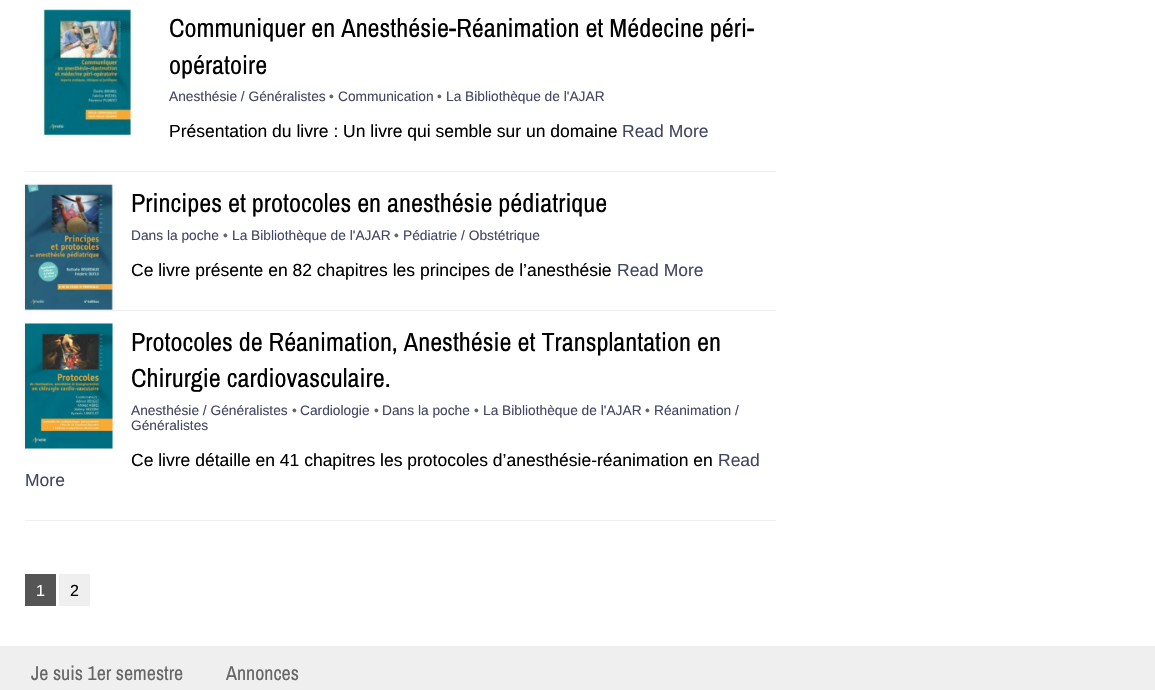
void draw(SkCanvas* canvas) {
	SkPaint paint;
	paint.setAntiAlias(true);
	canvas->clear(0xffffffff);
	paint.setColor(0xffefefef);
	canvas->drawRect(SkRect::MakeXYWH(25, 171, 751, 1), paint);
	canvas->drawImageRect(SkImages::DeferredFromEncodedData(SkData::MakeFromFileName("img1.png")), SkRect::MakeXYWH(38, 9, 95, 126), SkSamplingOptions());
	SkFont f1(fontMgr->matchFamilyStyle("Archivo Narrow", SkFontStyle::Normal()), 26.25);
	f1.setSubpixel(true);
	paint.setColor(0xff000000);
	canvas->drawString("Communiquer en Anesthésie-Réanimation et Médecine péri-", 169, 37, f1, paint);
	canvas->drawString("opératoire", 169, 74, f1, paint);
	SkFont f2(fontMgr->matchFamilyStyle("Liberation Sans", SkFontStyle::Normal()), 13.75);
	f2.setSubpixel(true);
	paint.setColor(0xff424663);
	canvas->drawString("Anesthésie / Généralistes", 169, 101, f2, paint);
	paint.setColor(0xff666666);
	canvas->drawString("•", 329, 101, f2, paint);
	paint.setColor(0xff424663);
	canvas->drawString("Communication", 338, 101, f2, paint);
	paint.setColor(0xff666666);
	canvas->drawString("•", 437, 101, f2, paint);
	paint.setColor(0xff424663);
	canvas->drawString("La Bibliothèque de l'AJAR", 446, 101, f2, paint);
	SkFont f3(fontMgr->matchFamilyStyle("Liberation Sans", SkFontStyle::Normal()), 17.5);
	f3.setSubpixel(true);
	paint.setColor(0xff000000);
	canvas->drawString("Présentation du livre : Un livre qui semble sur un domaine", 169, 137, f3, paint);
	paint.setColor(0xff424663);
	canvas->drawString("Read More", 622, 137, f3, paint);
	paint.setColor(0xffefefef);
	canvas->drawRect(SkRect::MakeXYWH(25, 310, 751, 1), paint);
	paint.setMaskFilter(SkMaskFilter::MakeBlur(kNormal_SkBlurStyle, 2));
	canvas->drawRect(SkRect::MakeXYWH(25, 185, 88, 125), paint);
	paint.setMaskFilter(nullptr);
	canvas->drawImageRect(SkImages::DeferredFromEncodedData(SkData::MakeFromFileName("img2.png")), SkRect::MakeXYWH(25, 184, 88, 126), SkSamplingOptions());
	paint.setColor(0xff000000);
	canvas->drawString("Principes et protocoles en anesthésie pédiatrique", 131, 212, f1, paint);
	paint.setColor(0xff424663);
	canvas->drawString("Dans la poche", 131, 240, f2, paint);
	paint.setColor(0xff666666);
	canvas->drawString("•", 223, 240, f2, paint);
	paint.setColor(0xff424663);
	canvas->drawString("La Bibliothèque de l'AJAR", 232, 240, f2, paint);
	paint.setColor(0xff666666);
	canvas->drawString("•", 394, 240, f2, paint);
	paint.setColor(0xff424663);
	canvas->drawString("Pédiatrie / Obstétrique", 403, 240, f2, paint);
	paint.setColor(0xff000000);
	canvas->drawString("Ce livre présente en 82 chapitres les principes de l’anesthésie", 131, 276, f3, paint);
	paint.setColor(0xff424663);
	canvas->drawString("Read More", 617, 276, f3, paint);
	paint.setColor(0xffefefef);
	canvas->drawRect(SkRect::MakeXYWH(25, 520, 751, 1), paint);
	paint.setMaskFilter(SkMaskFilter::MakeBlur(kNormal_SkBlurStyle, 2));
	canvas->drawRect(SkRect::MakeXYWH(25, 324, 88, 125), paint);
	paint.setMaskFilter(nullptr);
	canvas->drawImageRect(SkImages::DeferredFromEncodedData(SkData::MakeFromFileName("img3.png")), SkRect::MakeXYWH(25, 323, 88, 126), SkSamplingOptions());
	paint.setColor(0xff000000);
	canvas->drawString("Protocoles de Réanimation, Anesthésie et Transplantation en", 131, 351, f1, paint);
	canvas->drawString("Chirurgie cardiovasculaire.", 131, 387, f1, paint);
	paint.setColor(0xff424663);
	canvas->drawString("Anesthésie / Généralistes", 131, 415, f2, paint);
	paint.setColor(0xff666666);
	canvas->drawString("•", 292, 415, f2, paint);
	paint.setColor(0xff424663);
	canvas->drawString("Cardiologie", 300, 415, f2, paint);
	paint.setColor(0xff666666);
	canvas->drawString("•", 374, 415, f2, paint);
	paint.setColor(0xff424663);
	canvas->drawString("Dans la poche", 382, 415, f2, paint);
	paint.setColor(0xff666666);
	canvas->drawString("•", 474, 415, f2, paint);
	paint.setColor(0xff424663);
	canvas->drawString("La Bibliothèque de l'AJAR", 483, 415, f2, paint);
	paint.setColor(0xff666666);
	canvas->drawString("•", 645, 415, f2, paint);
	paint.setColor(0xff424663);
	canvas->drawString("Réanimation /", 654, 415, f2, paint);
	canvas->drawString("Généralistes", 131, 430, f2, paint);
	paint.setColor(0xff000000);
	canvas->drawString("Ce livre détaille en 41 chapitres les protocoles d’anesthésie-réanimation en", 131, 466, f3, paint);
	paint.setColor(0xff424663);
	canvas->drawString("Read", 718, 466, f3, paint);
	canvas->drawString("More", 25, 486, f3, paint);
	paint.setColor(0xff555555);
	canvas->drawRect(SkRect::MakeXYWH(25, 574, 31, 32), paint);
	SkFont f4(fontMgr->matchFamilyStyle("Liberation Sans", SkFontStyle::Normal()), 16);
	f4.setSubpixel(true);
	paint.setColor(0xffffffff);
	canvas->drawString("1", 36, 596, f4, paint);
	paint.setColor(0xffefefef);
	canvas->drawRect(SkRect::MakeXYWH(59, 574, 31, 32), paint);
	paint.setColor(0xff000000);
	canvas->drawString("2", 70, 596, f4, paint);
	paint.setColor(0xffefefef);
	canvas->drawRect(SkRect::MakeXYWH(0, 646, 1155, 44), paint);
	SkFont f5(fontMgr->matchFamilyStyle("Archivo Narrow", SkFontStyle::Normal()), 20);
	f5.setSubpixel(true);
	paint.setColor(0xff666666);
	canvas->drawString("Je suis 1er semestre", 31, 680, f5, paint);
	canvas->drawString("Annonces", 226, 680, f5, paint);
}
